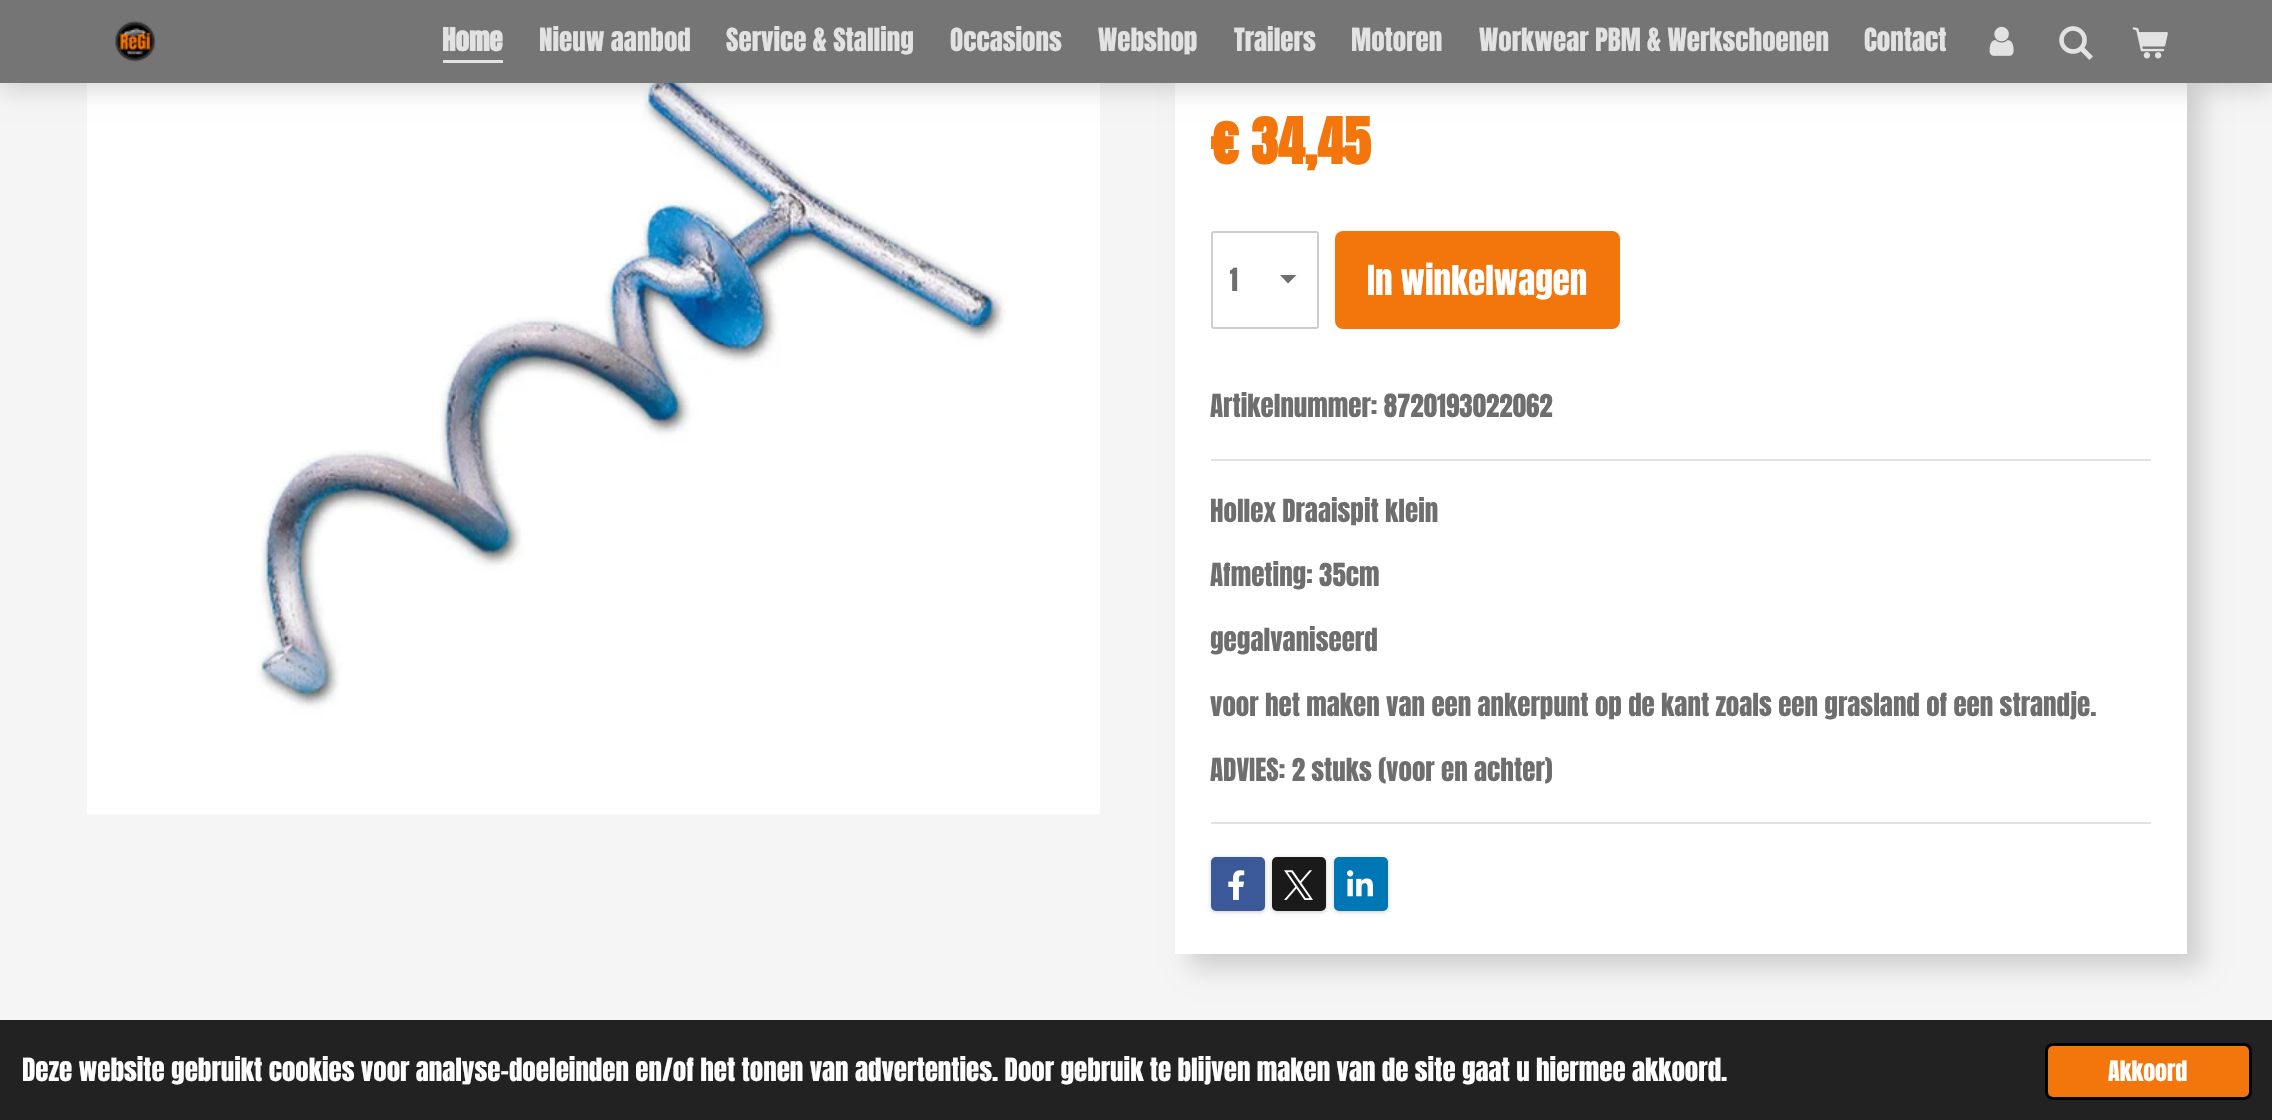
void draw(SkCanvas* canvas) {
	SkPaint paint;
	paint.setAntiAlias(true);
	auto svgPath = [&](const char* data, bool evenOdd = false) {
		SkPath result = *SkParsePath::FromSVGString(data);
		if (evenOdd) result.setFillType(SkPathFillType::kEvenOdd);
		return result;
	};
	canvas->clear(0xfff5f5f5);
	canvas->drawImageRect(SkImages::DeferredFromEncodedData(SkData::MakeFromFileName("img5.png")), SkRect::MakeXYWH(87, 83, 1013, 732), SkSamplingOptions());
	paint.setColor(0x26000000);
	paint.setMaskFilter(SkMaskFilter::MakeBlur(kNormal_SkBlurStyle, 11));
	canvas->drawRect(SkRect::MakeXYWH(1190, 86, 1012, 883), paint);
	paint.setMaskFilter(nullptr);
	paint.setColor(0xffffffff);
	canvas->drawRect(SkRect::MakeXYWH(1175, 83, 1012, 871), paint);
	paint.setColor(0x26000000);
	paint.setMaskFilter(SkMaskFilter::MakeBlur(kNormal_SkBlurStyle, 11));
	canvas->drawRect(SkRect::MakeXYWH(0, 8, 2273, 82), paint);
	paint.setMaskFilter(nullptr);
	paint.setColor(0xff757575);
	canvas->drawRect(SkRect::MakeXYWH(0, 0, 2272, 83), paint);
	canvas->drawImageRect(SkImages::DeferredFromEncodedData(SkData::MakeFromFileName("img1.png")), SkRect::MakeXYWH(115, 21, 41, 41), SkSamplingOptions());
	SkFont f1(fontMgr->matchFamilyStyle("Anton", SkFontStyle::Bold()), 27);
	f1.setSubpixel(true);
	paint.setColor(0xffe2e2e2);
	canvas->drawString("Home", 442, 51, f1, paint);
	canvas->drawRect(SkRect::MakeXYWH(443, 60, 60, 3), paint);
	SkFont f2(fontMgr->matchFamilyStyle("Anton", SkFontStyle::Normal()), 27);
	f2.setSubpixel(true);
	canvas->drawString("Nieuw aanbod", 539, 51, f2, paint);
	canvas->drawString("Service & Stalling", 726, 51, f2, paint);
	canvas->drawString("Occasions", 950, 51, f2, paint);
	canvas->drawString("Webshop", 1098, 51, f2, paint);
	canvas->drawString("Trailers", 1234, 51, f2, paint);
	canvas->drawString("Motoren", 1351, 51, f2, paint);
	canvas->drawString("Workwear PBM & Werkschoenen", 1479, 51, f2, paint);
	canvas->drawString("Contact", 1864, 51, f2, paint);
	canvas->drawImageRect(SkImages::DeferredFromEncodedData(SkData::MakeFromFileName("img2.png")), SkRect::MakeXYWH(1989, 26, 25, 30), SkSamplingOptions());
	canvas->drawImageRect(SkImages::DeferredFromEncodedData(SkData::MakeFromFileName("img3.png")), SkRect::MakeXYWH(2059, 26, 34, 34), SkSamplingOptions());
	canvas->drawImageRect(SkImages::DeferredFromEncodedData(SkData::MakeFromFileName("img4.png")), SkRect::MakeXYWH(2132, 27, 36, 32), SkSamplingOptions());
	SkFont f3(fontMgr->matchFamilyStyle("Anton", SkFontStyle::Bold()), 54);
	f3.setSubpixel(true);
	paint.setColor(0xfff3760c);
	canvas->drawString("€ 34,45", 1210, 164, f3, paint);
	paint.setColor(0xff6e6e6e);
	canvas->drawPath(svgPath("M1288 283.5L1280 275H1296.5Z"), paint);
	paint.setStroke(true);
	paint.setStrokeWidth(2);
	paint.setColor(0xffcecece);
	canvas->drawRoundRect(SkRect::MakeXYWH(1212, 232, 106, 96), 2, 2, paint);
	canvas->save();
	canvas->clipRect(SkRect::MakeXYWH(1230, 260, 87, 40));
	paint.setStroke(false);
	paint.setColor(0xff6e6e6e);
	canvas->drawString("1", 1229, 291, f2, paint);
	canvas->restore();
	paint.setColor(0xfff3760c);
	canvas->drawRoundRect(SkRect::MakeXYWH(1335, 231, 285, 98), 8, 8, paint);
	SkFont f4(fontMgr->matchFamilyStyle("Anton", SkFontStyle::Normal()), 35);
	f4.setSubpixel(true);
	paint.setColor(0xffffffff);
	canvas->drawString("In winkelwagen", 1367, 295, f4, paint);
	paint.setColor(0xff6e6e6e);
	canvas->drawString("Artikelnummer: 8720193022062", 1210, 417, f2, paint);
	paint.setColor(0xffe2e2e2);
	canvas->drawRect(SkRect::MakeXYWH(1211, 459, 940, 2), paint);
	paint.setColor(0xff6e6e6e);
	canvas->drawString("Hollex Draaispit klein", 1210, 522, f2, paint);
	canvas->drawString("Afmeting: 35cm", 1210, 586, f2, paint);
	canvas->drawString("gegalvaniseerd", 1210, 651, f2, paint);
	canvas->drawString("voor het maken van een ankerpunt op de kant zoals een grasland of een strandje.", 1210, 716, f2, paint);
	canvas->drawString("ADVIES: 2 stuks (voor en achter)", 1210, 781, f2, paint);
	paint.setColor(0xffe2e2e2);
	canvas->drawRect(SkRect::MakeXYWH(1211, 822, 940, 2), paint);
	paint.setColor(0x33000000);
	paint.setMaskFilter(SkMaskFilter::MakeBlur(kNormal_SkBlurStyle, 2));
	canvas->drawRoundRect(SkRect::MakeXYWH(1211, 858, 54, 54), 5, 5, paint);
	paint.setMaskFilter(nullptr);
	paint.setColor(0xff3b5998);
	canvas->drawRoundRect(SkRect::MakeXYWH(1211, 857, 54, 54), 5, 5, paint);
	canvas->drawImageRect(SkImages::DeferredFromEncodedData(SkData::MakeFromFileName("img6.png")), SkRect::MakeXYWH(1228, 870, 17, 30), SkSamplingOptions());
	paint.setColor(0x33000000);
	paint.setMaskFilter(SkMaskFilter::MakeBlur(kNormal_SkBlurStyle, 2));
	canvas->drawRoundRect(SkRect::MakeXYWH(1272, 858, 54, 54), 5, 5, paint);
	paint.setMaskFilter(nullptr);
	paint.setColor(0xff1a1a1a);
	canvas->drawRoundRect(SkRect::MakeXYWH(1272, 857, 54, 54), 5, 5, paint);
	canvas->drawImageRect(SkImages::DeferredFromEncodedData(SkData::MakeFromFileName("img7.png")), SkRect::MakeXYWH(1284, 870, 29, 30), SkSamplingOptions());
	paint.setColor(0x33000000);
	paint.setMaskFilter(SkMaskFilter::MakeBlur(kNormal_SkBlurStyle, 2));
	canvas->drawRoundRect(SkRect::MakeXYWH(1334, 858, 54, 54), 5, 5, paint);
	paint.setMaskFilter(nullptr);
	paint.setColor(0xff0077b5);
	canvas->drawRoundRect(SkRect::MakeXYWH(1334, 857, 54, 54), 5, 5, paint);
	canvas->drawImageRect(SkImages::DeferredFromEncodedData(SkData::MakeFromFileName("img8.png")), SkRect::MakeXYWH(1347, 870, 26, 27), SkSamplingOptions());
	paint.setColor(0xff222222);
	canvas->drawRect(SkRect::MakeXYWH(0, 1020, 2272, 100), paint);
	paint.setColor(0xffffffff);
	canvas->drawString("Deze website gebruikt cookies voor analyse-doeleinden en/of het tonen van advertenties. Door gebruik te blijven maken van de site gaat u hiermee akkoord.", 22, 1081, f2, paint);
	paint.setColor(0xfff3760c);
	canvas->drawRoundRect(SkRect::MakeXYWH(2046.5, 1044.5, 204, 54), 6.5, 6.5, paint);
	paint.setStroke(true);
	paint.setStrokeWidth(3);
	paint.setColor(0xff000000);
	canvas->drawRoundRect(SkRect::MakeXYWH(2046.5, 1044.5, 204, 54), 6.5, 6.5, paint);
	SkFont f5(fontMgr->matchFamilyStyle("Anton", SkFontStyle::Normal()), 24);
	f5.setSubpixel(true);
	paint.setStroke(false);
	paint.setColor(0xffffffff);
	canvas->drawString("Akkoord", 2108, 1081, f5, paint);
}
